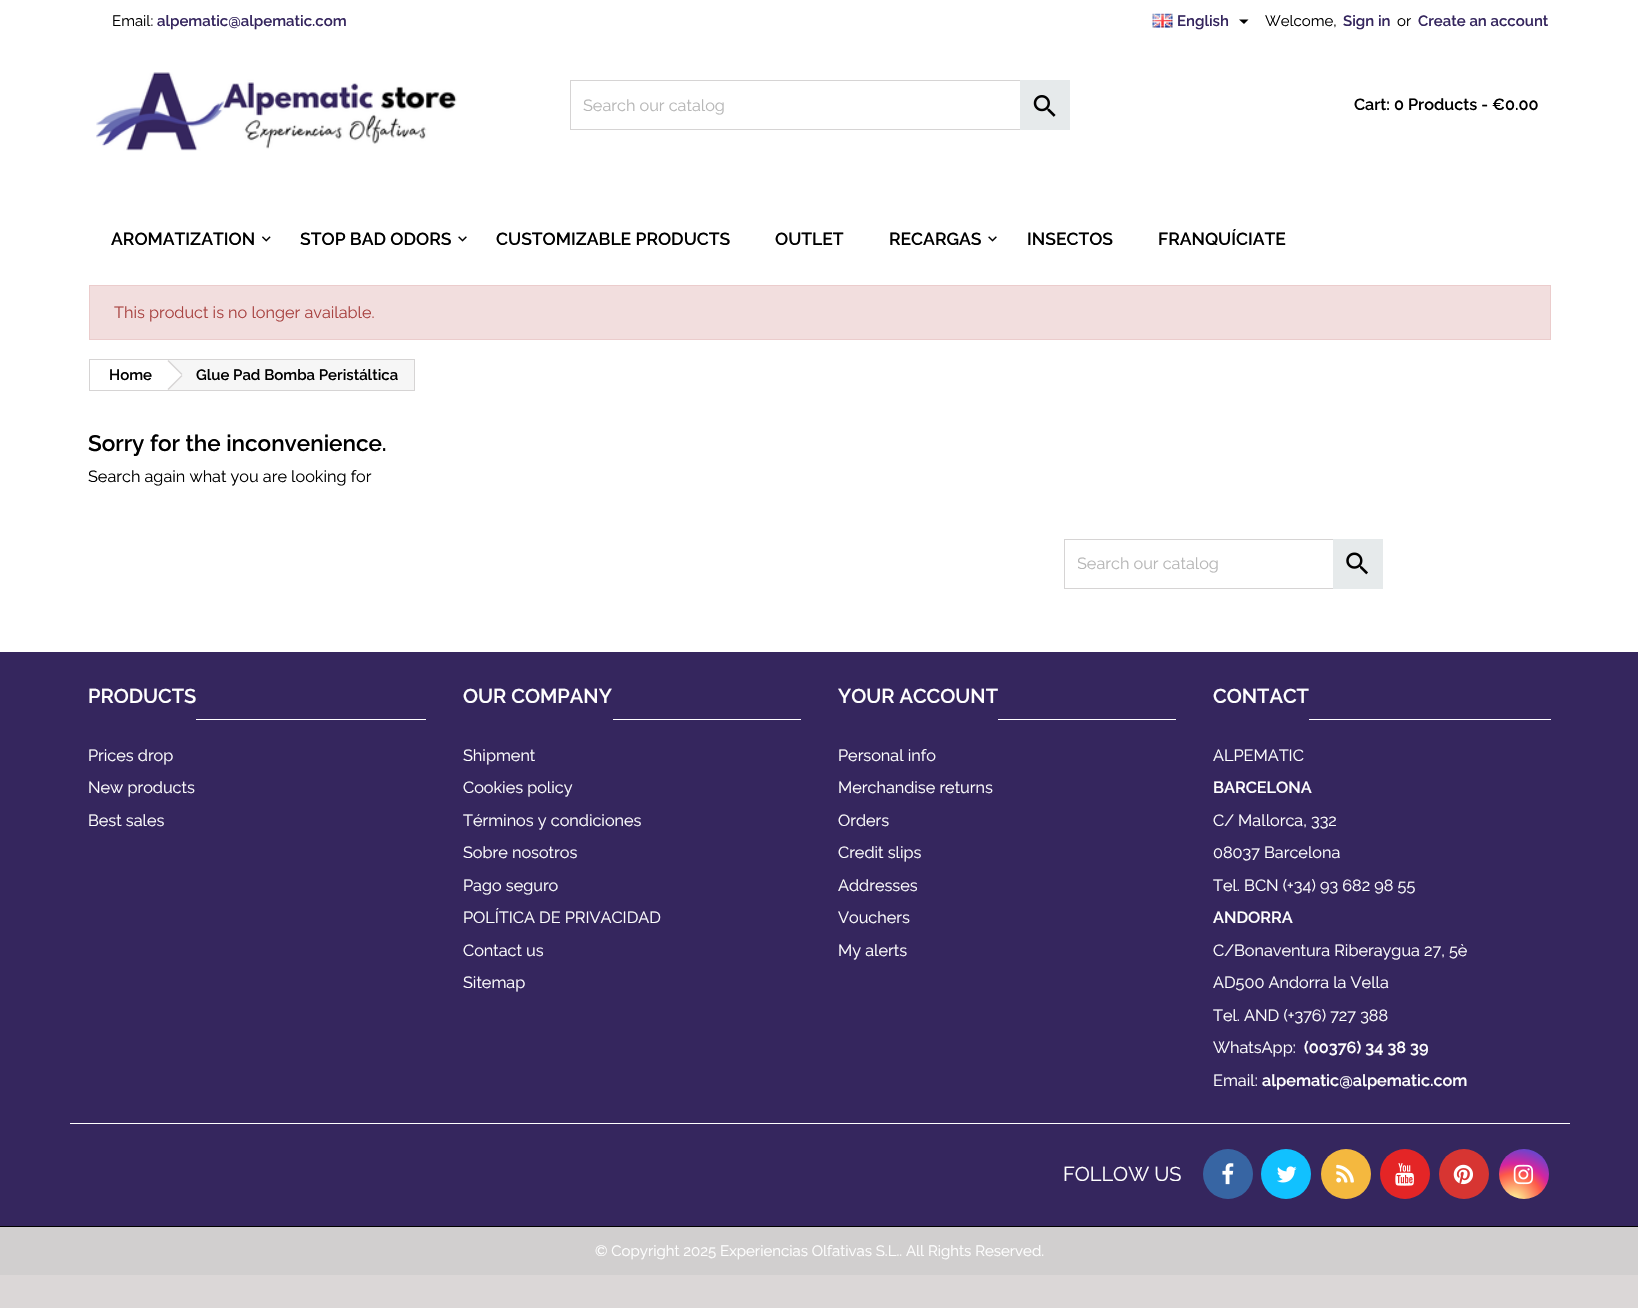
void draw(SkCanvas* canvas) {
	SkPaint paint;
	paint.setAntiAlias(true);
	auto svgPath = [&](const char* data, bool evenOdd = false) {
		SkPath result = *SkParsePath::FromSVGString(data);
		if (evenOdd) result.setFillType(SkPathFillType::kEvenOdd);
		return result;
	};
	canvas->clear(0xffdbd7d7);
	paint.setColor(0xffffffff);
	canvas->drawRect(SkRect::MakeXYWH(0, 0, 1638, 652), paint);
	SkFont f1(fontMgr->matchFamilyStyle("Raleway", SkFontStyle::Normal()), 15);
	f1.setSubpixel(true);
	paint.setColor(0xff000000);
	canvas->drawString("Email:", 112, 26, f1, paint);
	SkFont f2(fontMgr->matchFamilyStyle("Raleway", SkFontStyle(600, SkFontStyle::kNormal_Width, SkFontStyle::kUpright_Slant)), 15);
	f2.setSubpixel(true);
	paint.setColor(0xff35265e);
	canvas->drawString("alpematic@alpematic.com", 157, 26, f2, paint);
	canvas->drawImageRect(SkImages::DeferredFromEncodedData(SkData::MakeFromFileName("img1.png")), SkRect::MakeXYWH(1152, 13, 21, 15), SkSamplingOptions());
	canvas->drawString("English", 1177, 26, f2, paint);
	paint.setColor(0xff000000);
	canvas->drawPath(svgPath("M1239 19.5H1248.5L1244 24Z"), paint);
	canvas->drawString("Welcome,", 1265, 26, f1, paint);
	paint.setColor(0xff35265e);
	canvas->drawString("Sign in", 1343, 26, f2, paint);
	paint.setColor(0xff000000);
	canvas->drawString("or", 1397, 26, f1, paint);
	paint.setColor(0xff35265e);
	canvas->drawString("Create an account", 1418, 26, f2, paint);
	canvas->drawImageRect(SkImages::DeferredFromEncodedData(SkData::MakeFromFileName("img2.png")), SkRect::MakeXYWH(96, 72, 361, 79), SkSamplingOptions());
	paint.setStroke(true);
	paint.setStrokeWidth(1);
	paint.setColor(0xffd6d4d4);
	canvas->drawRect(SkRect::MakeXYWH(570.5, 80.5, 499, 49), paint);
	SkFont f3(fontMgr->matchFamilyStyle("Raleway", SkFontStyle::Normal()), 16.25);
	f3.setSubpixel(true);
	paint.setStroke(false);
	paint.setColor(0xffb7b7b7);
	canvas->drawString("Search our catalog", 583, 111, f3, paint);
	paint.setColor(0xffe6eaeb);
	canvas->drawRect(SkRect::MakeXYWH(1020, 80, 50, 50), paint);
	canvas->drawImageRect(SkImages::DeferredFromEncodedData(SkData::MakeFromFileName("img3.png")), SkRect::MakeXYWH(1033, 95, 23, 22), SkSamplingOptions());
	SkFont f4(fontMgr->matchFamilyStyle("Raleway", SkFontStyle(600, SkFontStyle::kNormal_Width, SkFontStyle::kUpright_Slant)), 16.25);
	f4.setSubpixel(true);
	paint.setColor(0xff000000);
	canvas->drawString("Cart: 0 Products - €0.00", 1354, 110, f4, paint);
	SkFont f5(fontMgr->matchFamilyStyle("Raleway", SkFontStyle(600, SkFontStyle::kNormal_Width, SkFontStyle::kUpright_Slant)), 17.5);
	f5.setSubpixel(true);
	canvas->drawString("AROMATIZATION", 111, 245, f5, paint);
	canvas->drawImageRect(SkImages::DeferredFromEncodedData(SkData::MakeFromFileName("img4.png")), SkRect::MakeXYWH(262, 236, 9, 6), SkSamplingOptions());
	canvas->drawString("STOP BAD ODORS", 300, 245, f5, paint);
	canvas->drawImageRect(SkImages::DeferredFromEncodedData(SkData::MakeFromFileName("img5.png")), SkRect::MakeXYWH(458, 236, 9, 6), SkSamplingOptions());
	canvas->drawString("CUSTOMIZABLE PRODUCTS", 496, 245, f5, paint);
	canvas->drawString("OUTLET", 775, 245, f5, paint);
	canvas->drawString("RECARGAS", 889, 245, f5, paint);
	canvas->drawImageRect(SkImages::DeferredFromEncodedData(SkData::MakeFromFileName("img5.png")), SkRect::MakeXYWH(988, 236, 9, 6), SkSamplingOptions());
	canvas->drawString("INSECTOS", 1027, 245, f5, paint);
	canvas->drawString("FRANQUÍCIATE", 1158, 245, f5, paint);
	paint.setColor(0xfff2dede);
	canvas->drawRect(SkRect::MakeXYWH(89.5, 285.5, 1461, 54), paint);
	paint.setStroke(true);
	paint.setColor(0xffebcccc);
	canvas->drawRect(SkRect::MakeXYWH(89.5, 285.5, 1461, 54), paint);
	paint.setStroke(false);
	paint.setColor(0xffa94442);
	canvas->drawString("This product is no longer available.", 114, 318, f3, paint);
	paint.setStroke(true);
	paint.setColor(0xffd6d4d4);
	canvas->drawRect(SkRect::MakeXYWH(89.5, 359.5, 325, 31), paint);
	paint.setStroke(false);
	paint.setColor(0xff000000);
	canvas->drawString("Home", 109, 380, f2, paint);
	paint.setColor(0xfff6f6f6);
	canvas->drawRect(SkRect::MakeXYWH(169, 360, 245, 30), paint);
	paint.setColor(0xffffffff);
	canvas->drawPath(svgPath("M169 361L181.5 373C182.5 374 182.5 376 181.5 377L169 389C168 390 166.5 390 165.5 389L153 377C152.5 376 152.5 374 153 373L165.5 361C166.5 360 168 360 169 361Z"), paint);
	paint.setColor(0xffd6d4d4);
	canvas->drawPath(svgPath("M168.5 360L182.5 374L181.5 375L167.5 361ZM181.5 375L182.5 376L168.5 390L167.5 389Z"), paint);
	paint.setColor(0xff000000);
	canvas->drawString("Glue Pad Bomba Peristáltica", 196, 380, f2, paint);
	SkFont f6(fontMgr->matchFamilyStyle("Raleway", SkFontStyle(600, SkFontStyle::kNormal_Width, SkFontStyle::kUpright_Slant)), 22.5);
	f6.setSubpixel(true);
	canvas->drawString("Sorry for the inconvenience.", 88, 451, f6, paint);
	canvas->drawString("Search again what you are looking for", 88, 482, f3, paint);
	paint.setStroke(true);
	paint.setColor(0xffd6d4d4);
	canvas->drawRect(SkRect::MakeXYWH(1064.5, 539.5, 318, 49), paint);
	canvas->save();
	canvas->clipRect(SkRect::MakeXYWH(1078, 554, 291, 19));
	paint.setStroke(false);
	paint.setColor(0xffb7b7b7);
	canvas->drawString("Search our catalog", 1077, 569, f3, paint);
	canvas->restore();
	paint.setColor(0xffe6eaeb);
	canvas->drawRect(SkRect::MakeXYWH(1333, 539, 50, 50), paint);
	canvas->drawImageRect(SkImages::DeferredFromEncodedData(SkData::MakeFromFileName("img6.png")), SkRect::MakeXYWH(1346, 552, 22, 23), SkSamplingOptions());
	paint.setColor(0xff35265e);
	canvas->drawRect(SkRect::MakeXYWH(0, 652, 1638, 574), paint);
	paint.setColor(0xffffffff);
	canvas->drawRect(SkRect::MakeXYWH(196, 719, 230, 1), paint);
	SkFont f7(fontMgr->matchFamilyStyle("Raleway", SkFontStyle(600, SkFontStyle::kNormal_Width, SkFontStyle::kUpright_Slant)), 20);
	f7.setSubpixel(true);
	canvas->drawString("PRODUCTS", 88, 703, f7, paint);
	canvas->drawString("Prices drop", 88, 761, f3, paint);
	canvas->drawString("New products", 88, 793, f3, paint);
	canvas->drawString("Best sales", 88, 826, f3, paint);
	canvas->drawRect(SkRect::MakeXYWH(613, 719, 188, 1), paint);
	canvas->drawString("OUR COMPANY", 463, 703, f7, paint);
	canvas->drawString("Shipment", 463, 761, f3, paint);
	canvas->drawString("Cookies policy", 463, 793, f3, paint);
	canvas->drawString("Términos y condiciones", 463, 826, f3, paint);
	canvas->drawString("Sobre nosotros", 463, 858, f3, paint);
	canvas->drawString("Pago seguro", 463, 891, f3, paint);
	canvas->drawString("POLÍTICA DE PRIVACIDAD", 463, 923, f3, paint);
	canvas->drawString("Contact us", 463, 956, f3, paint);
	canvas->drawString("Sitemap", 463, 988, f3, paint);
	canvas->drawRect(SkRect::MakeXYWH(998, 719, 178, 1), paint);
	canvas->drawString("YOUR ACCOUNT", 838, 703, f7, paint);
	canvas->drawString("Personal info", 838, 761, f3, paint);
	canvas->drawString("Merchandise returns", 838, 793, f3, paint);
	canvas->drawString("Orders", 838, 826, f3, paint);
	canvas->drawString("Credit slips", 838, 858, f3, paint);
	canvas->drawString("Addresses", 838, 891, f3, paint);
	canvas->drawString("Vouchers", 838, 923, f3, paint);
	canvas->drawString("My alerts", 838, 956, f3, paint);
	canvas->drawRect(SkRect::MakeXYWH(1309, 719, 242, 1), paint);
	canvas->drawString("CONTACT", 1213, 703, f7, paint);
	canvas->drawString("ALPEMATIC", 1213, 761, f3, paint);
	canvas->drawString("BARCELONA", 1213, 793, f4, paint);
	canvas->drawString("C/ Mallorca, 332", 1213, 826, f3, paint);
	canvas->drawString("08037 Barcelona", 1213, 858, f3, paint);
	canvas->drawString("Tel. BCN (+34) 93 682 98 55", 1213, 891, f3, paint);
	canvas->drawString("ANDORRA", 1213, 923, f4, paint);
	canvas->drawString("C/Bonaventura Riberaygua 27, 5è", 1213, 956, f3, paint);
	canvas->drawString("AD500 Andorra la Vella", 1213, 988, f3, paint);
	canvas->drawString("Tel. AND (+376) 727 388", 1213, 1021, f3, paint);
	canvas->drawString("WhatsApp:", 1213, 1053, f3, paint);
	canvas->drawString("(00376) 34 38 39", 1304, 1053, f4, paint);
	canvas->drawString("Email:", 1213, 1086, f3, paint);
	canvas->drawString("alpematic@alpematic.com", 1262, 1086, f4, paint);
	canvas->drawRect(SkRect::MakeXYWH(70, 1123, 1500, 1), paint);
	SkFont f8(fontMgr->matchFamilyStyle("Raleway", SkFontStyle::Normal()), 20);
	f8.setSubpixel(true);
	canvas->drawString("FOLLOW US", 1063, 1181, f8, paint);
	paint.setColor(0xff3765a3);
	canvas->drawCircle(1228, 1174, 25, paint);
	canvas->drawImageRect(SkImages::DeferredFromEncodedData(SkData::MakeFromFileName("img7.png")), SkRect::MakeXYWH(1222, 1163, 12, 22), SkSamplingOptions());
	paint.setColor(0xff11c1ff);
	canvas->drawCircle(1286, 1174, 25, paint);
	canvas->drawImageRect(SkImages::DeferredFromEncodedData(SkData::MakeFromFileName("img8.png")), SkRect::MakeXYWH(1277, 1166, 20, 17), SkSamplingOptions());
	paint.setColor(0xfff4b83f);
	canvas->drawCircle(1346, 1174, 25, paint);
	canvas->drawImageRect(SkImages::DeferredFromEncodedData(SkData::MakeFromFileName("img9.png")), SkRect::MakeXYWH(1336, 1164, 18, 19), SkSamplingOptions());
	paint.setColor(0xffe42526);
	canvas->drawCircle(1405, 1174, 25, paint);
	canvas->drawImageRect(SkImages::DeferredFromEncodedData(SkData::MakeFromFileName("img10.png")), SkRect::MakeXYWH(1395, 1163, 19, 23), SkSamplingOptions());
	paint.setColor(0xffd73532);
	canvas->drawCircle(1464, 1174, 25, paint);
	canvas->drawImageRect(SkImages::DeferredFromEncodedData(SkData::MakeFromFileName("img11.png")), SkRect::MakeXYWH(1453, 1164, 20, 21), SkSamplingOptions());
	{
		const SkColor colors[] = {0xfffdf497, 0xfffdf497, 0xfffd5949, 0xffd6249f, 0xff285aeb};
		const float stops[] = {0, 0.05, 0.45, 0.6, 1};
		paint.setShader(SkGradientShader::MakeRadial({1514, 1202}, 64, colors, stops, 5, SkTileMode::kClamp));
		paint.setAlpha(255);
	}
	canvas->drawCircle(1524, 1174, 25, paint);
	canvas->drawImageRect(SkImages::DeferredFromEncodedData(SkData::MakeFromFileName("img12.png")), SkRect::MakeXYWH(1513, 1164, 21, 21), SkSamplingOptions());
	paint.setShader(nullptr);
	paint.setColor(0xffd1cfcf);
	canvas->drawRect(SkRect::MakeXYWH(0, 1227, 1638, 48), paint);
	paint.setColor(0xff000000);
	canvas->drawRect(SkRect::MakeXYWH(0, 1226, 1638, 1), paint);
	paint.setColor(0xffffffff);
	canvas->drawString("© Copyright 2025 Experiencias Olfativas S.L.. All Rights Reserved.", 595, 1256, f1, paint);
}
